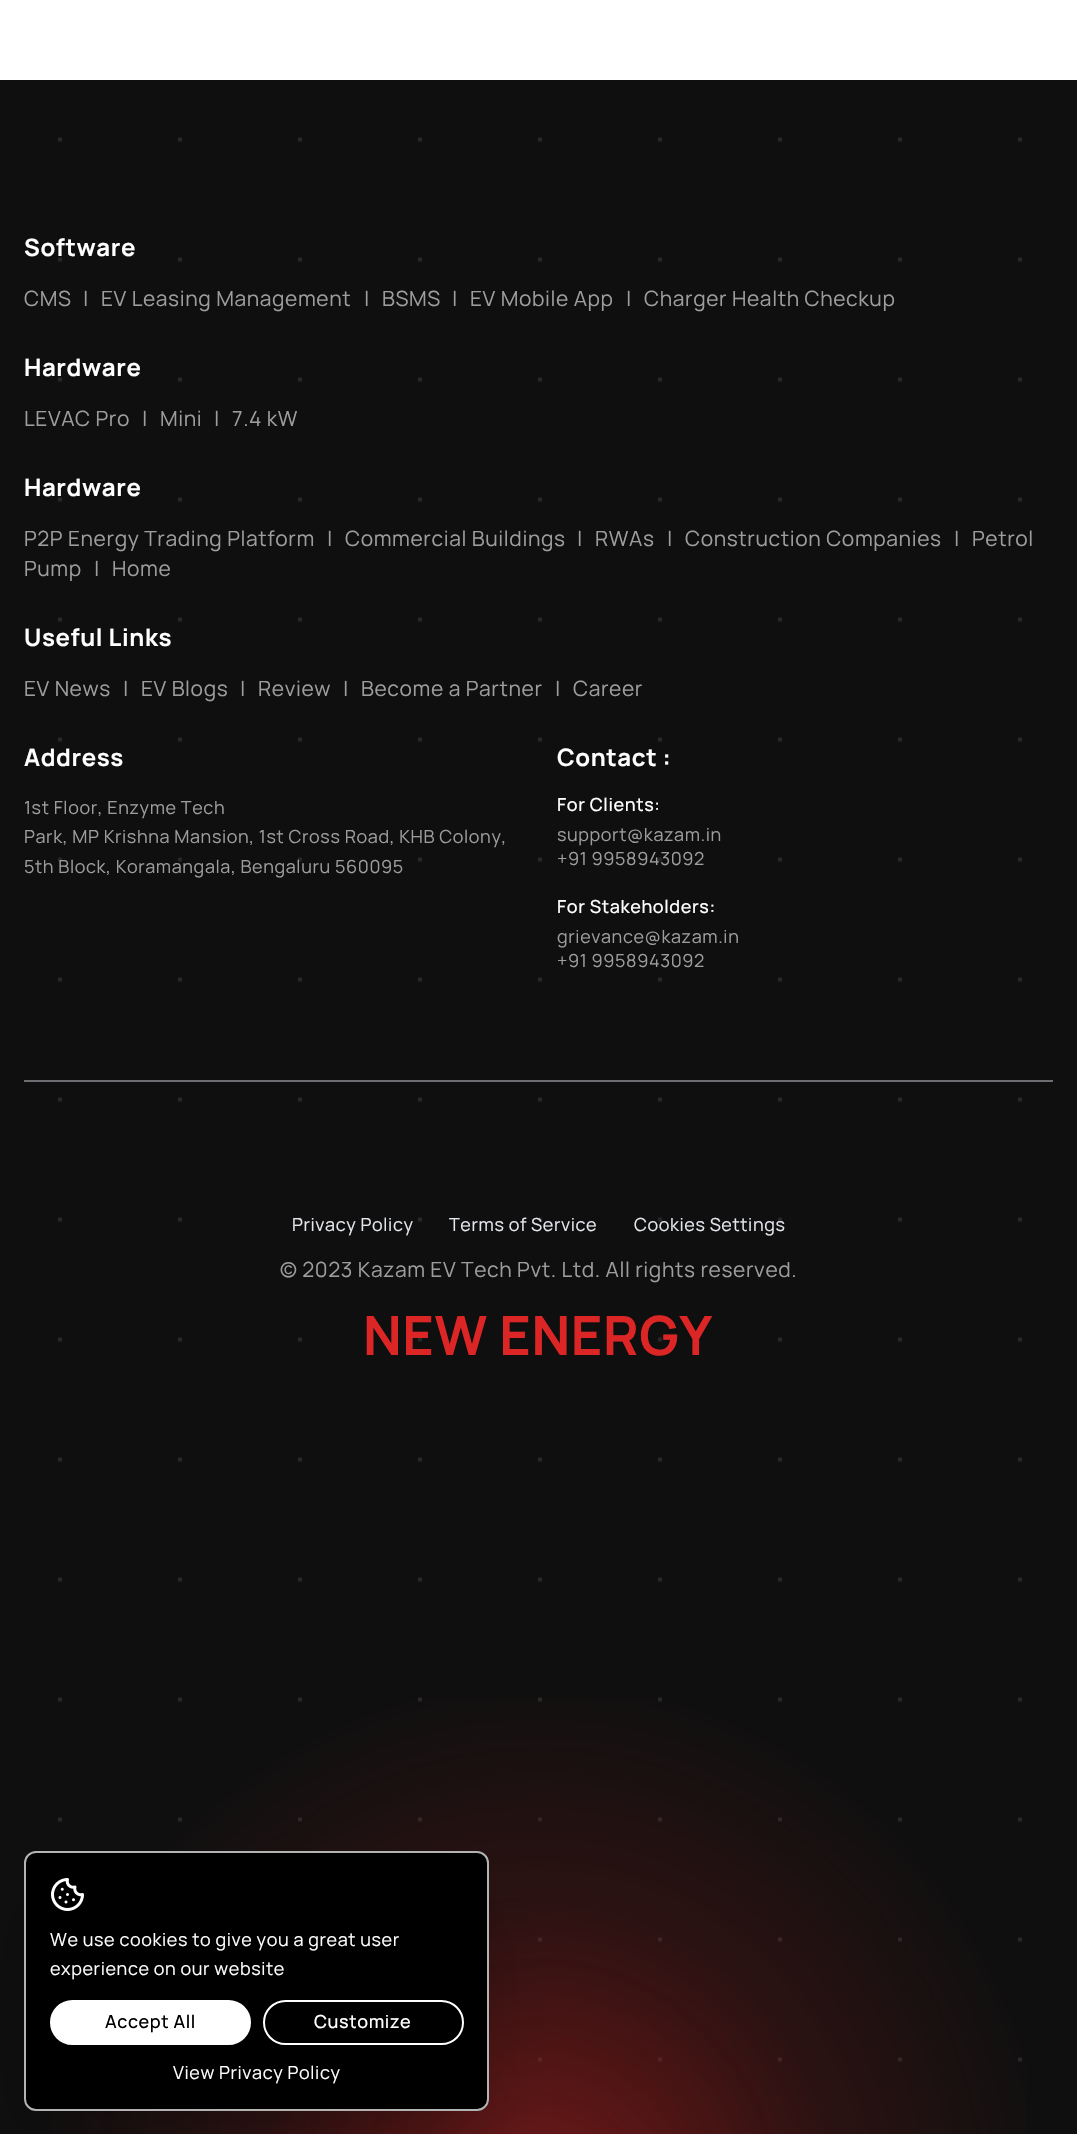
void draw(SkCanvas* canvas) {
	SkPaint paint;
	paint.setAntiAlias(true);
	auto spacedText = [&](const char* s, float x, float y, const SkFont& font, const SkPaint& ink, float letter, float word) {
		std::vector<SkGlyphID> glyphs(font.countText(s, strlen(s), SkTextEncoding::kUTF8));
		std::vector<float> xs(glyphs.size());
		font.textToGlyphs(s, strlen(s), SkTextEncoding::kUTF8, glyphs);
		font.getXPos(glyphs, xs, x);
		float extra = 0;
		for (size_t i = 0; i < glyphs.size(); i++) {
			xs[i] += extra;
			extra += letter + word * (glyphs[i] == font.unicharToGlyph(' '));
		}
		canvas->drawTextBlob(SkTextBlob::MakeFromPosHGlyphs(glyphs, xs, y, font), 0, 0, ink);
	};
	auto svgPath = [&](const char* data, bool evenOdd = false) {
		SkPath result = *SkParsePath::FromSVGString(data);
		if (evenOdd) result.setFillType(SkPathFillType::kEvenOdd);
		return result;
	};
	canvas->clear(0xffffffff);
	paint.setColor(0xff0f0f0f);
	canvas->drawRect(SkRect::MakeXYWH(0, 80, 1077, 2054), paint);
	paint.setStroke(true);
	paint.setStrokeWidth(4.5);
	paint.setStrokeCap(SkPaint::kRound_Cap);
	paint.setColor(0xff272727);
	paint.setPathEffect(SkDashPathEffect::Make({{0, 120}}, 0));
	canvas->drawPath(svgPath("M60 139.5V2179.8"), paint);
	paint.setPathEffect(nullptr);
	paint.setPathEffect(SkDashPathEffect::Make({{0, 120}}, 0));
	canvas->drawPath(svgPath("M180 139.5V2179.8"), paint);
	paint.setPathEffect(nullptr);
	paint.setPathEffect(SkDashPathEffect::Make({{0, 120}}, 0));
	canvas->drawPath(svgPath("M300 139.5V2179.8"), paint);
	paint.setPathEffect(nullptr);
	paint.setPathEffect(SkDashPathEffect::Make({{0, 120}}, 0));
	canvas->drawPath(svgPath("M420 139.5V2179.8"), paint);
	paint.setPathEffect(nullptr);
	paint.setPathEffect(SkDashPathEffect::Make({{0, 120}}, 0));
	canvas->drawPath(svgPath("M540 139.5V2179.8"), paint);
	paint.setPathEffect(nullptr);
	paint.setPathEffect(SkDashPathEffect::Make({{0, 120}}, 0));
	canvas->drawPath(svgPath("M660 139.5V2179.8"), paint);
	paint.setPathEffect(nullptr);
	paint.setPathEffect(SkDashPathEffect::Make({{0, 120}}, 0));
	canvas->drawPath(svgPath("M780 139.5V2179.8"), paint);
	paint.setPathEffect(nullptr);
	paint.setPathEffect(SkDashPathEffect::Make({{0, 120}}, 0));
	canvas->drawPath(svgPath("M900 139.5V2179.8"), paint);
	paint.setPathEffect(nullptr);
	paint.setPathEffect(SkDashPathEffect::Make({{0, 120}}, 0));
	canvas->drawPath(svgPath("M1020 139.5V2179.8"), paint);
	paint.setPathEffect(nullptr);
	SkFont f1(fontMgr->matchFamilyStyle("Manrope", SkFontStyle::Bold()), 24);
	f1.setSubpixel(true);
	paint.setStroke(false);
	paint.setColor(0xffffffff);
	spacedText("Software", 24, 256, f1, paint, 0.6, 0);
	SkFont f2(fontMgr->matchFamilyStyle("Manrope", SkFontStyle::Normal()), 21);
	f2.setSubpixel(true);
	paint.setColor(0xff9d9d9d);
	spacedText("CMS", 24, 306, f2, paint, 0.6, 0);
	spacedText("|", 83, 306, f2, paint, 0.6, 0);
	spacedText("EV Leasing Management", 101, 306, f2, paint, 0.6, 0);
	spacedText("|", 364, 306, f2, paint, 0.6, 0);
	spacedText("BSMS", 382, 306, f2, paint, 0.6, 0);
	spacedText("|", 452, 306, f2, paint, 0.6, 0);
	spacedText("EV Mobile App", 470, 306, f2, paint, 0.6, 0);
	spacedText("|", 626, 306, f2, paint, 0.6, 0);
	spacedText("Charger Health Checkup", 644, 306, f2, paint, 0.6, 0);
	paint.setColor(0xffffffff);
	spacedText("Hardware", 24, 376, f1, paint, 0.6, 0);
	paint.setColor(0xff9d9d9d);
	spacedText("LEVAC Pro", 24, 426, f2, paint, 0.6, 0);
	spacedText("|", 142, 426, f2, paint, 0.6, 0);
	spacedText("Mini", 160, 426, f2, paint, 0.6, 0);
	spacedText("|", 214, 426, f2, paint, 0.6, 0);
	spacedText("7.4 kW", 232, 426, f2, paint, 0.6, 0);
	paint.setColor(0xffffffff);
	spacedText("Hardware", 24, 496, f1, paint, 0.6, 0);
	paint.setColor(0xff9d9d9d);
	spacedText("P2P Energy Trading Platform", 24, 546, f2, paint, 0.6, 0);
	spacedText("|", 327, 546, f2, paint, 0.6, 0);
	spacedText("Commercial Buildings", 345, 546, f2, paint, 0.6, 0);
	spacedText("|", 577, 546, f2, paint, 0.6, 0);
	spacedText("RWAs", 595, 546, f2, paint, 0.6, 0);
	spacedText("|", 667, 546, f2, paint, 0.6, 0);
	spacedText("Construction Companies", 685, 546, f2, paint, 0.6, 0);
	spacedText("|", 954, 546, f2, paint, 0.6, 0);
	spacedText("Petrol", 972, 546, f2, paint, 0.6, 0);
	spacedText("Pump", 24, 576, f2, paint, 0.6, 0);
	spacedText("|", 94, 576, f2, paint, 0.6, 0);
	spacedText("Home", 112, 576, f2, paint, 0.6, 0);
	paint.setColor(0xffffffff);
	spacedText("Useful Links", 24, 646, f1, paint, 0.6, 0);
	paint.setColor(0xff9d9d9d);
	spacedText("EV News", 24, 696, f2, paint, 0.6, 0);
	spacedText("|", 123, 696, f2, paint, 0.6, 0);
	spacedText("EV Blogs", 141, 696, f2, paint, 0.6, 0);
	spacedText("|", 240, 696, f2, paint, 0.6, 0);
	spacedText("Review", 258, 696, f2, paint, 0.6, 0);
	spacedText("|", 343, 696, f2, paint, 0.6, 0);
	spacedText("Become a Partner", 361, 696, f2, paint, 0.6, 0);
	spacedText("|", 555, 696, f2, paint, 0.6, 0);
	spacedText("Career", 573, 696, f2, paint, 0.6, 0);
	paint.setColor(0xffffffff);
	spacedText("Address", 24, 766, f1, paint, 0.6, 0);
	SkFont f3(fontMgr->matchFamilyStyle("Manrope", SkFontStyle::Normal()), 18);
	f3.setSubpixel(true);
	paint.setColor(0xff9d9d9d);
	spacedText("1st Floor, Enzyme Tech", 24, 814, f3, paint, 0.6, 0);
	spacedText("Park, MP Krishna Mansion, 1st Cross Road, KHB Colony,", 24, 843, f3, paint, 0.6, 0);
	spacedText("5th Block, Koramangala, Bengaluru 560095", 24, 873, f3, paint, 0.6, 0);
	paint.setColor(0xffffffff);
	spacedText("Contact :", 557, 766, f1, paint, 0.6, 0);
	SkFont f4(fontMgr->matchFamilyStyle("Manrope", SkFontStyle(500, SkFontStyle::kNormal_Width, SkFontStyle::kUpright_Slant)), 18);
	f4.setSubpixel(true);
	spacedText("For Clients:", 557, 811, f4, paint, 0.6, 0);
	paint.setColor(0xff9d9d9d);
	spacedText("support@kazam.in", 557, 841, f3, paint, 0.6, 0);
	spacedText("+91 9958943092", 557, 865, f3, paint, 0.6, 0);
	paint.setColor(0xffffffff);
	spacedText("For Stakeholders:", 557, 913, f4, paint, 0.6, 0);
	paint.setColor(0xff9d9d9d);
	spacedText("grievance@kazam.in", 557, 943, f3, paint, 0.6, 0);
	spacedText("+91 9958943092", 557, 967, f3, paint, 0.6, 0);
	paint.setColor(0xff6e6e72);
	canvas->drawRect(SkRect::MakeXYWH(24, 1080, 1029, 2), paint);
	paint.setColor(0xffe4e7ec);
	spacedText("Privacy Policy", 292, 1231, f3, paint, 0.6, 0);
	spacedText("Terms of Service", 449, 1231, f3, paint, 0.6, 0);
	spacedText("Cookies Settings", 634, 1231, f3, paint, 0.6, 0);
	paint.setColor(0xff9d9d9d);
	spacedText("© 2023 Kazam EV Tech Pvt. Ltd. All rights reserved.", 280, 1277, f2, paint, 0.6, 0);
	SkFont f5(fontMgr->matchFamilyStyle("Manrope", SkFontStyle::Bold()), 54);
	f5.setSubpixel(true);
	paint.setColor(0xffdc2626);
	spacedText("NEW ENERGY", 363, 1355, f5, paint, 0.6, 0);
	{
		const SkColor colors[] = {0x80dc2626, 0x59b91c1c, 0x33991b1b, 0x00991b1b};
		const float stops[] = {0, 0.2, 0.35, 0.6};
		SkMatrix m = SkMatrix::Translate(539, 2214).preScale(862, 900);
		paint.setShader(SkGradientShader::MakeRadial({0, 0}, 1, colors, stops, 4, SkTileMode::kClamp, 0, &m));
		paint.setAlpha(255);
	}
	canvas->drawRect(SkRect::MakeXYWH(51, 1699, 976, 435), paint);
	paint.setShader(nullptr);
	paint.setColor(0x40000000);
	paint.setMaskFilter(SkMaskFilter::MakeBlur(kNormal_SkBlurStyle, 37.5));
	canvas->drawRect(SkRect::MakeXYWH(42, 1907, 429, 223), paint);
	paint.setMaskFilter(nullptr);
	paint.setColor(0xff000000);
	canvas->drawRoundRect(SkRect::MakeXYWH(24, 1851, 465, 260), 12, 12, paint);
	paint.setStroke(true);
	paint.setStrokeWidth(2);
	paint.setStrokeCap(SkPaint::kButt_Cap);
	paint.setColor(0xb3ffffff);
	canvas->drawRoundRect(SkRect::MakeXYWH(25, 1852, 463, 258), 11, 11, paint);
	canvas->drawImageRect(SkImages::DeferredFromEncodedData(SkData::MakeFromFileName("img1.png")), SkRect::MakeXYWH(51, 1878, 33, 33), SkSamplingOptions());
	paint.setStroke(false);
	paint.setColor(0xffffffff);
	spacedText("We use cookies to give you a great user", 50, 1946, f3, paint, 0.6, 0);
	spacedText("experience on our website", 50, 1975, f3, paint, 0.6, 0);
	canvas->drawRoundRect(SkRect::MakeXYWH(51, 2001, 199, 43), 21.5, 21.5, paint);
	paint.setStroke(true);
	canvas->drawRoundRect(SkRect::MakeXYWH(51, 2001, 199, 43), 21.5, 21.5, paint);
	paint.setStroke(false);
	paint.setColor(0xff000000);
	spacedText("Accept All", 105, 2028, f4, paint, 0.6, 0);
	paint.setStroke(true);
	paint.setColor(0xffffffff);
	canvas->drawRoundRect(SkRect::MakeXYWH(264, 2001, 199, 43), 21.5, 21.5, paint);
	paint.setStroke(false);
	spacedText("Customize", 314, 2028, f4, paint, 0.6, 0);
	spacedText("View Privacy Policy", 173, 2079, f3, paint, 0.6, 0);
}
